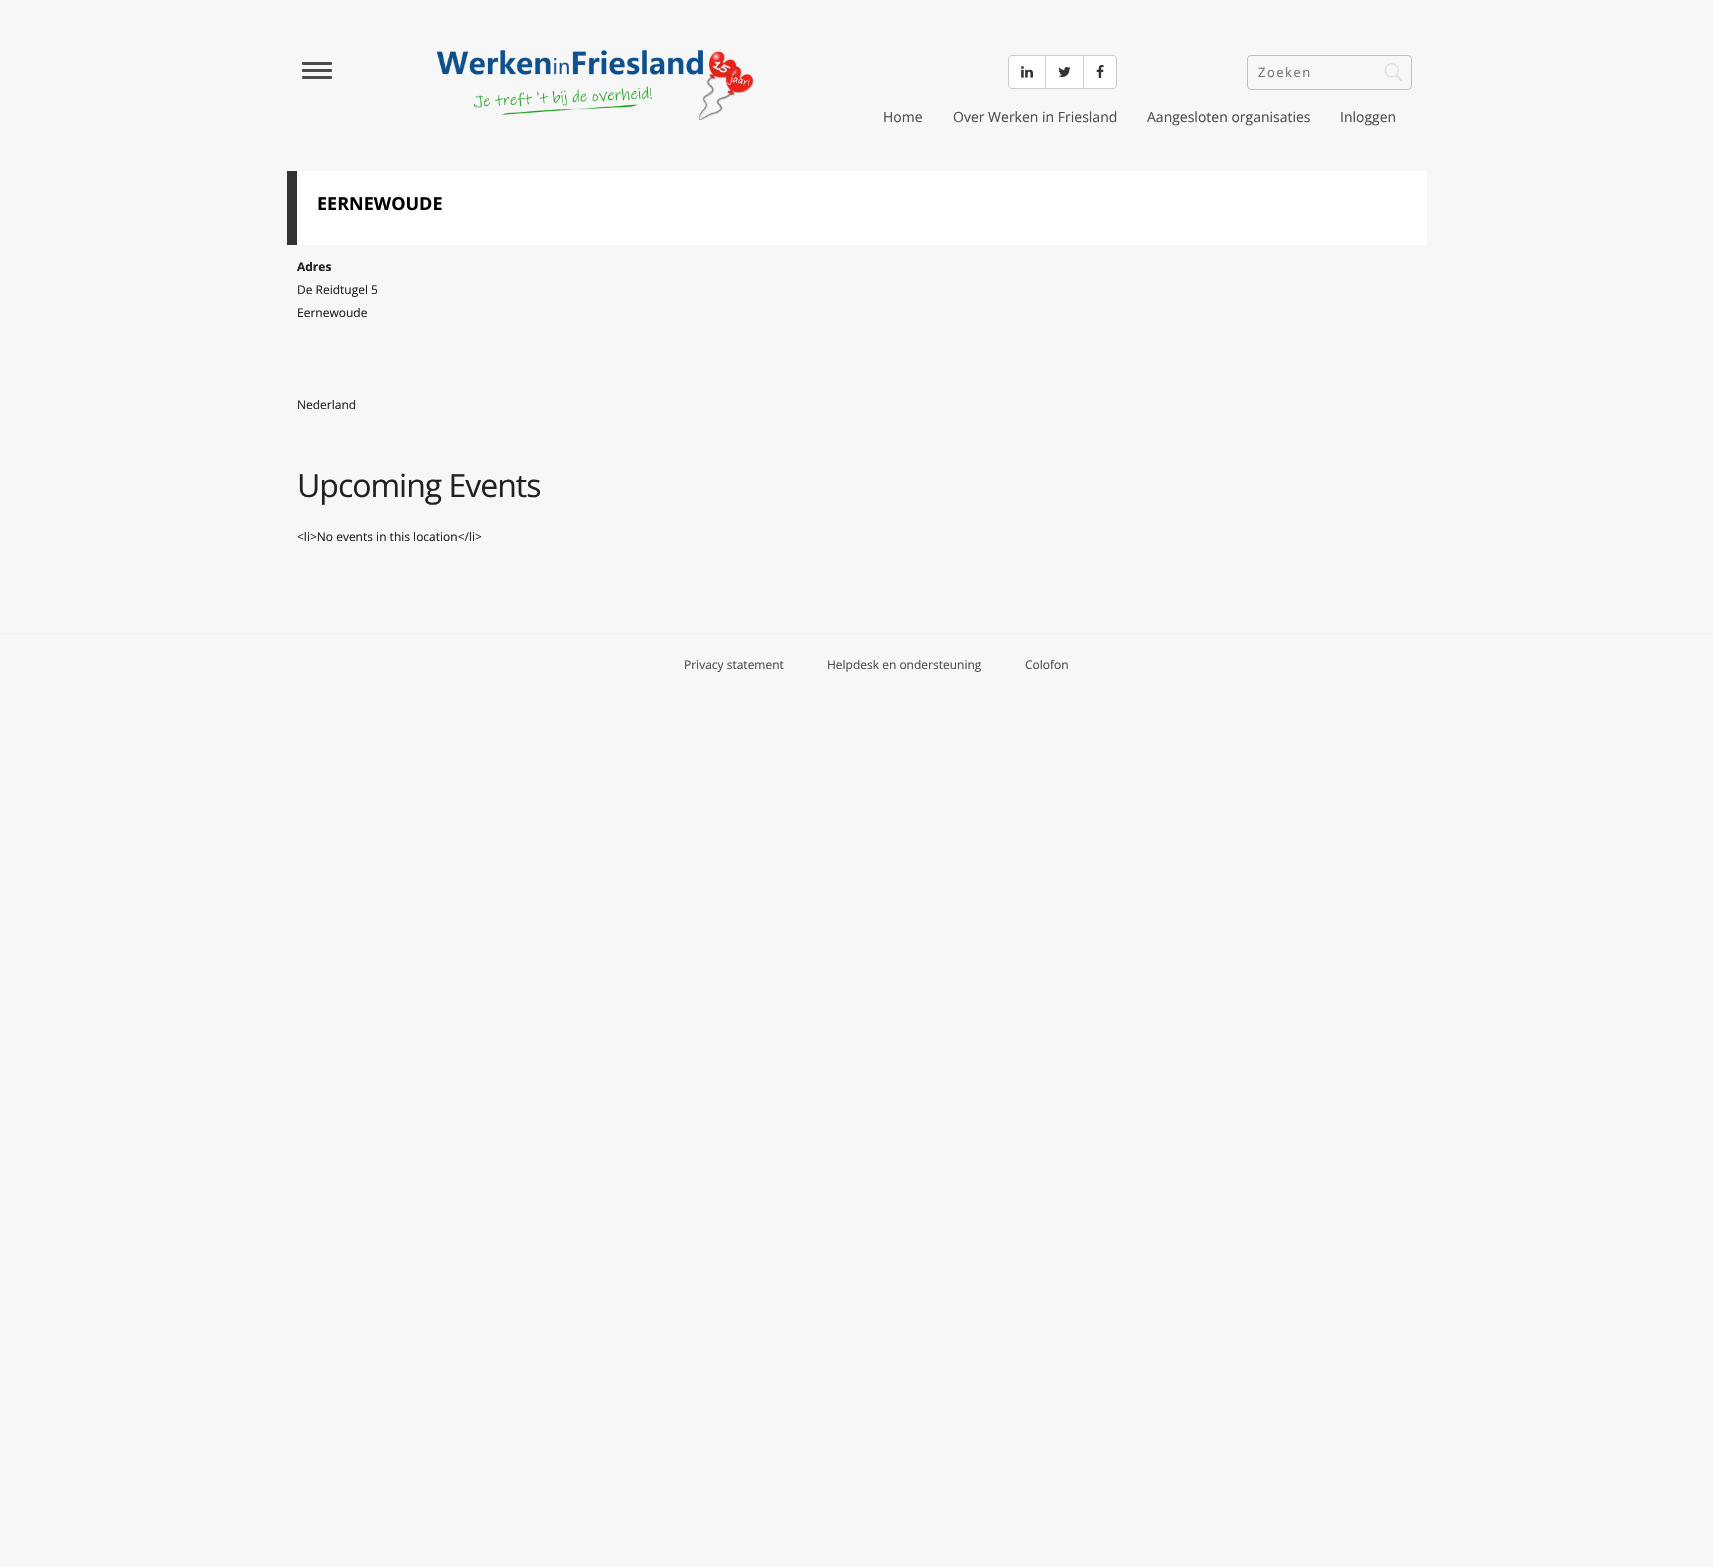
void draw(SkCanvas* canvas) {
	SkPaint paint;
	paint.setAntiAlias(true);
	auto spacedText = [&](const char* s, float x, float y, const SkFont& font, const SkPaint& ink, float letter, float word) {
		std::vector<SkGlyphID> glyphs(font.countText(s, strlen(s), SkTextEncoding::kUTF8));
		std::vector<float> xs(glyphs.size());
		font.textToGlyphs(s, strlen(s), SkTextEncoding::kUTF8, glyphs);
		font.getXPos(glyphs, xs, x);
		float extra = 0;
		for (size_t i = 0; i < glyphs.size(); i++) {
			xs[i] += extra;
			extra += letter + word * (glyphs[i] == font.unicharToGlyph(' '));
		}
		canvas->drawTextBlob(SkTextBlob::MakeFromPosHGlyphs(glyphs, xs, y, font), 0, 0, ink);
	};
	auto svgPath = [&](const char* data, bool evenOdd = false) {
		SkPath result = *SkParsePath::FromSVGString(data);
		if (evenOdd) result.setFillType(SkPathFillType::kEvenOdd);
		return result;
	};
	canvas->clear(0xfff8f7f7);
	paint.setColor(0xff4a4a4a);
	canvas->drawRoundRect(SkRect::MakeXYWH(302, 62, 30, 3), 1, 1, paint);
	canvas->drawRoundRect(SkRect::MakeXYWH(302, 69, 30, 3), 1, 1, paint);
	canvas->drawRoundRect(SkRect::MakeXYWH(302, 76, 30, 3), 1, 1, paint);
	canvas->drawImageRect(SkImages::DeferredFromEncodedData(SkData::MakeFromFileName("img1.png")), SkRect::MakeXYWH(436, 49, 318, 71), SkSamplingOptions());
	paint.setColor(0xffffffff);
	canvas->drawPath(svgPath("M1012 55.5H1045.5V88.5H1012C1010 88.5 1008.5 87 1008.5 85V59C1008.5 57 1010 55.5 1012 55.5Z"), paint);
	paint.setStroke(true);
	paint.setStrokeWidth(1);
	paint.setColor(0xffcccccc);
	canvas->drawPath(svgPath("M1012 55.5H1045.5V88.5H1012C1010 88.5 1008.5 87 1008.5 85V59C1008.5 57 1010 55.5 1012 55.5Z"), paint);
	canvas->drawImageRect(SkImages::DeferredFromEncodedData(SkData::MakeFromFileName("img2.png")), SkRect::MakeXYWH(1021, 66, 12, 12), SkSamplingOptions());
	paint.setStroke(false);
	paint.setColor(0xffffffff);
	canvas->drawRect(SkRect::MakeXYWH(1045.5, 55.5, 38, 33), paint);
	paint.setStroke(true);
	paint.setColor(0xffcccccc);
	canvas->drawRect(SkRect::MakeXYWH(1045.5, 55.5, 38, 33), paint);
	canvas->drawImageRect(SkImages::DeferredFromEncodedData(SkData::MakeFromFileName("img3.png")), SkRect::MakeXYWH(1058, 67, 13, 10), SkSamplingOptions());
	paint.setStroke(false);
	paint.setColor(0xffffffff);
	canvas->drawPath(svgPath("M1083.5 55.5H1113C1115 55.5 1116.5 57 1116.5 59V85C1116.5 87 1115 88.5 1113 88.5H1083.5Z"), paint);
	paint.setStroke(true);
	paint.setColor(0xffcccccc);
	canvas->drawPath(svgPath("M1083.5 55.5H1113C1115 55.5 1116.5 57 1116.5 59V85C1116.5 87 1115 88.5 1113 88.5H1083.5Z"), paint);
	canvas->drawImageRect(SkImages::DeferredFromEncodedData(SkData::MakeFromFileName("img4.png")), SkRect::MakeXYWH(1096, 65, 8, 13), SkSamplingOptions());
	canvas->drawImageRect(SkImages::DeferredFromEncodedData(SkData::MakeFromFileName("img5.png")), SkRect::MakeXYWH(1384, 63, 19, 19), SkSamplingOptions());
	paint.setColor(0xffc0bebe);
	canvas->drawRoundRect(SkRect::MakeXYWH(1247.5, 55.5, 164, 34), 3.5, 3.5, paint);
	SkFont f1(fontMgr->matchFamilyStyle("Open Sans", SkFontStyle::Normal()), 13);
	f1.setSubpixel(true);
	paint.setStroke(false);
	paint.setColor(0xff757575);
	spacedText("Zoeken", 1258, 77, f1, paint, 1.5, 0);
	SkFont f2(fontMgr->matchFamilyStyle("Open Sans", SkFontStyle::Normal()), 14);
	f2.setSubpixel(true);
	paint.setColor(0xff4c4d4e);
	canvas->drawString("Home", 883, 122, f2, paint);
	canvas->drawString("Over Werken in Friesland", 953, 122, f2, paint);
	canvas->drawString("Aangesloten organisaties", 1147, 122, f2, paint);
	canvas->drawString("Inloggen", 1340, 122, f2, paint);
	paint.setColor(0xffffffff);
	canvas->drawRect(SkRect::MakeXYWH(297, 171, 1130, 74), paint);
	paint.setColor(0xff333333);
	canvas->drawRect(SkRect::MakeXYWH(287, 171, 10, 74), paint);
	SkFont f3(fontMgr->matchFamilyStyle("Open Sans", SkFontStyle::Bold()), 18);
	f3.setSubpixel(true);
	paint.setColor(0xff000000);
	canvas->drawString("EERNEWOUDE", 317, 210, f3, paint);
	SkFont f4(fontMgr->matchFamilyStyle("Open Sans", SkFontStyle::Bold()), 12);
	f4.setSubpixel(true);
	paint.setColor(0xff212121);
	canvas->drawString("Adres", 297, 271, f4, paint);
	SkFont f5(fontMgr->matchFamilyStyle("Open Sans", SkFontStyle::Normal()), 12);
	f5.setSubpixel(true);
	canvas->drawString("De Reidtugel 5", 297, 294, f5, paint);
	canvas->drawString("Eernewoude", 297, 317, f5, paint);
	canvas->drawString("Nederland", 297, 409, f5, paint);
	SkFont f6(fontMgr->matchFamilyStyle("Open Sans", SkFontStyle::Normal()), 32);
	f6.setSubpixel(true);
	spacedText("Upcoming Events", 297, 497, f6, paint, -1, 0);
	canvas->drawString("<li>No events in this location</li>", 297, 541, f5, paint);
	paint.setColor(0xfff1f1f1);
	canvas->drawRect(SkRect::MakeXYWH(0, 633, 1713, 1), paint);
	paint.setColor(0xff4c4d4e);
	canvas->drawString("Privacy statement", 684, 669, f5, paint);
	canvas->drawString("Helpdesk en ondersteuning", 827, 669, f5, paint);
	canvas->drawString("Colofon", 1025, 669, f5, paint);
}
